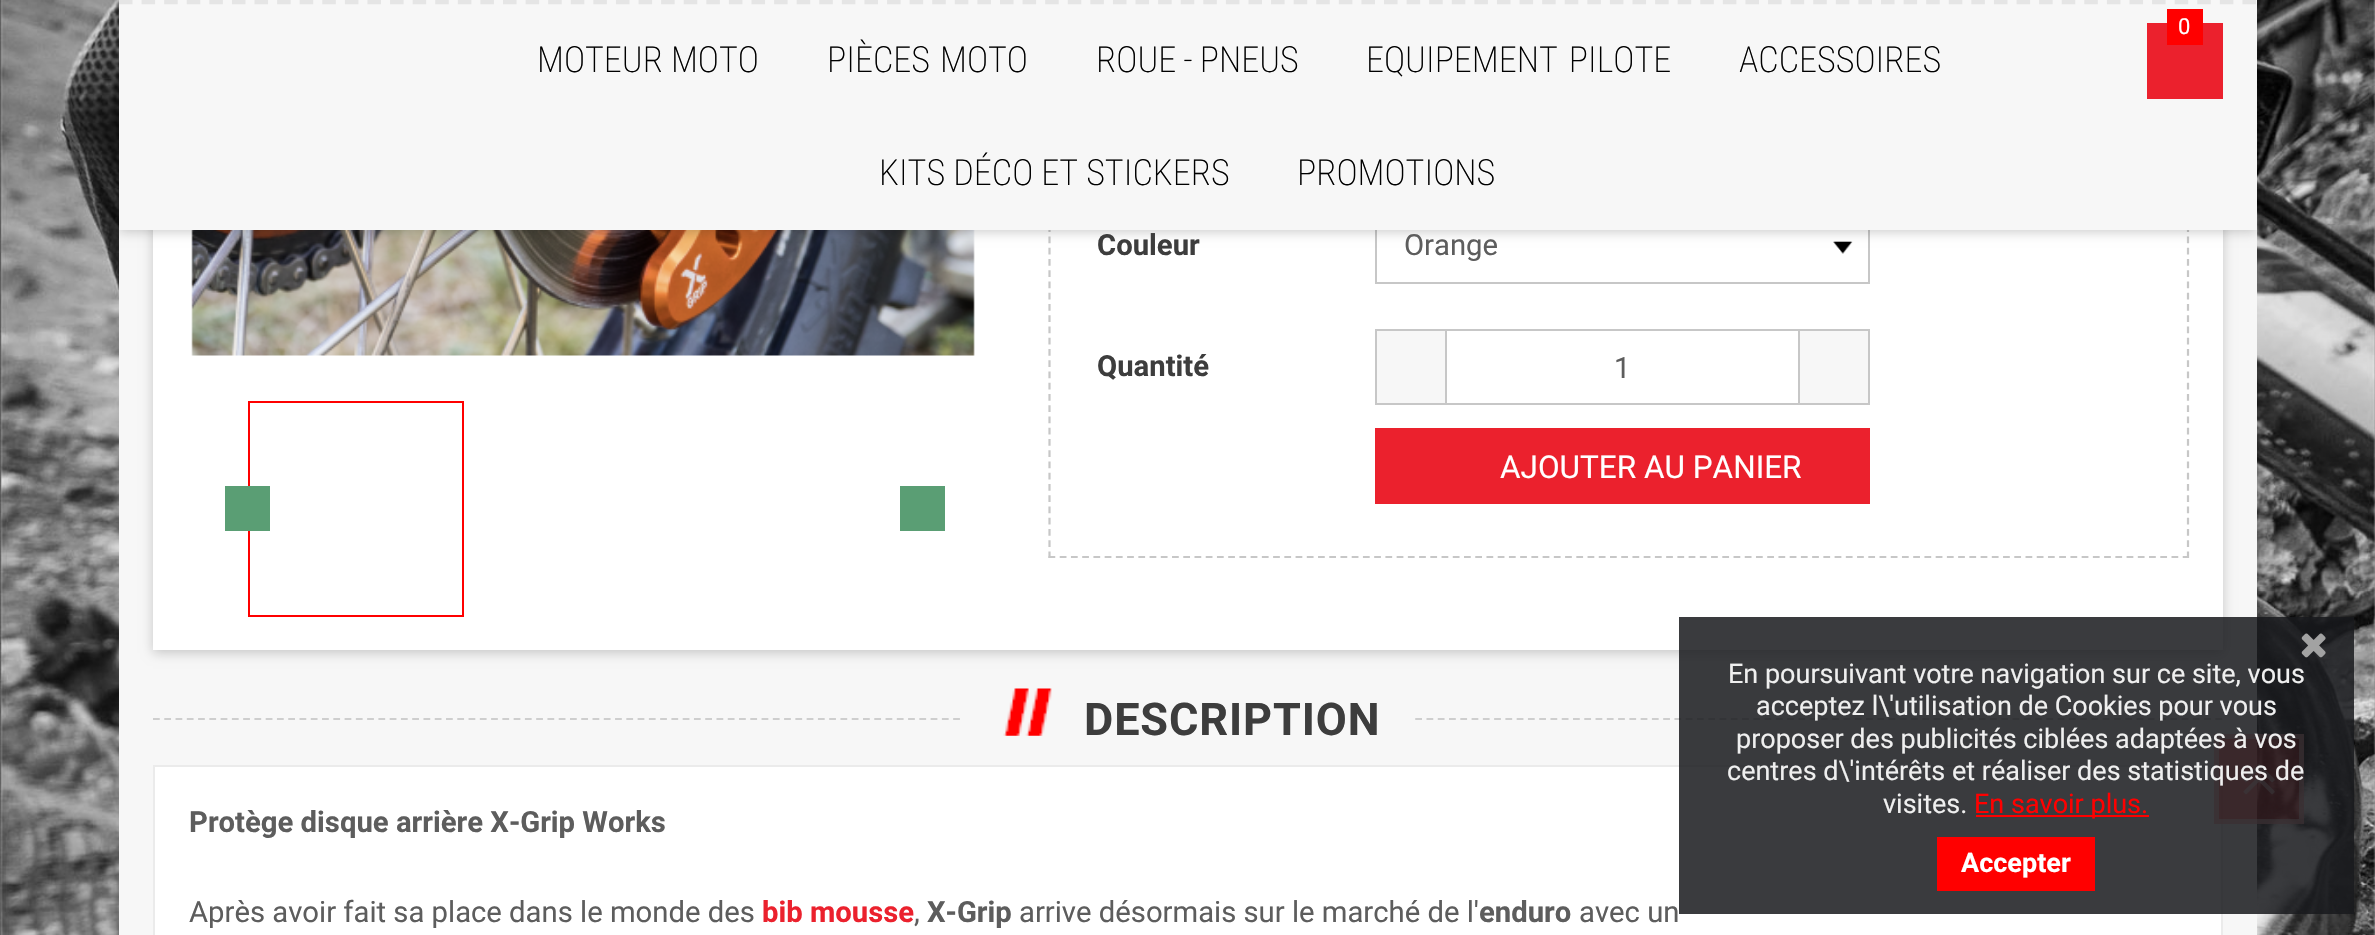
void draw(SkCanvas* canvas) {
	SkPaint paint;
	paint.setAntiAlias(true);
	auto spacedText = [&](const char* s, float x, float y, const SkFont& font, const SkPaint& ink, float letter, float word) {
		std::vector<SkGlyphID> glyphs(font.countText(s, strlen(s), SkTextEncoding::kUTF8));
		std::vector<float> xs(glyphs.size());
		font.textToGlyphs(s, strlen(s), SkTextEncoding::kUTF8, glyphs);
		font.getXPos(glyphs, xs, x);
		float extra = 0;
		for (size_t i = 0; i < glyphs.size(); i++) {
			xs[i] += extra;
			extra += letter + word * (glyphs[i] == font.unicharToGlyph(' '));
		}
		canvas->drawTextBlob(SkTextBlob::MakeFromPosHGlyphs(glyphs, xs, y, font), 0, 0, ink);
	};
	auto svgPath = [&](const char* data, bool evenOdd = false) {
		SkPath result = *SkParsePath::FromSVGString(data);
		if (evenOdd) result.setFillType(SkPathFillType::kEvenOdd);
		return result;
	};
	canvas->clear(0xffffffff);
	canvas->drawImageRect(SkImages::DeferredFromEncodedData(SkData::MakeFromFileName("img1.png")), SkRect::MakeXYWH(0, 0, 2375, 935), SkSamplingOptions());
	paint.setColor(0xfff7f7f7);
	canvas->drawRect(SkRect::MakeXYWH(119, 230, 2138, 705), paint);
	paint.setColor(0x33000000);
	paint.setMaskFilter(SkMaskFilter::MakeBlur(kNormal_SkBlurStyle, 5.5));
	canvas->drawRect(SkRect::MakeXYWH(153, -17, 2070, 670), paint);
	paint.setMaskFilter(nullptr);
	paint.setColor(0xffffffff);
	canvas->drawRect(SkRect::MakeXYWH(153, 230, 2070, 420), paint);
	canvas->drawImageRect(SkImages::DeferredFromEncodedData(SkData::MakeFromFileName("img2.png")), SkRect::MakeXYWH(191, 230, 784, 126), SkSamplingOptions());
	paint.setStroke(true);
	paint.setStrokeWidth(2.2);
	paint.setColor(0xffc7c7c7);
	paint.setPathEffect(SkDashPathEffect::Make({{6.75f, 4.5f}}, 0));
	canvas->drawPath(svgPath("M2188-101V558"), paint);
	paint.setPathEffect(nullptr);
	paint.setPathEffect(SkDashPathEffect::Make({{6.75f, 4.48f}}, 0));
	canvas->drawPath(svgPath("M1048.5 557H2189"), paint);
	paint.setPathEffect(nullptr);
	paint.setPathEffect(SkDashPathEffect::Make({{6.75f, 4.5f}}, 0));
	canvas->drawPath(svgPath("M1049.5-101V558"), paint);
	paint.setPathEffect(nullptr);
	canvas->drawImageRect(SkImages::DeferredFromEncodedData(SkData::MakeFromFileName("img3.png")), SkRect::MakeXYWH(1833, 241, 20, 13), SkSamplingOptions());
	paint.setStrokeWidth(2);
	canvas->drawRect(SkRect::MakeXYWH(1376, 208, 493, 75), paint);
	paint.setStroke(false);
	paint.setColor(0x33000000);
	paint.setMaskFilter(SkMaskFilter::MakeBlur(kNormal_SkBlurStyle, 5.5));
	canvas->drawRect(SkRect::MakeXYWH(119, 2, 2138, 230), paint);
	paint.setMaskFilter(nullptr);
	paint.setColor(0xfff7f7f7);
	canvas->drawRect(SkRect::MakeXYWH(119, 0, 2138, 230), paint);
	paint.setStroke(true);
	paint.setStrokeWidth(4.5);
	paint.setColor(0xffe5e5e5);
	paint.setPathEffect(SkDashPathEffect::Make({{13.5f, 9.09f}}, 0));
	canvas->drawPath(svgPath("M119 2H2257"), paint);
	paint.setPathEffect(nullptr);
	paint.setStroke(false);
	paint.setColor(0xffeb212d);
	canvas->drawRect(SkRect::MakeXYWH(2147, 23, 76, 76), paint);
	paint.setColor(0xffff0000);
	canvas->drawRect(SkRect::MakeXYWH(2167, 9, 36, 36), paint);
	SkFont f1(fontMgr->matchFamilyStyle("Roboto", SkFontStyle::Normal()), 22);
	f1.setSubpixel(true);
	paint.setColor(0xffffffff);
	canvas->drawString("0", 2178, 34, f1, paint);
	SkFont f2(fontMgr->matchFamilyStyle("Roboto Condensed", SkFontStyle(200, SkFontStyle::kNormal_Width, SkFontStyle::kUpright_Slant)), 36);
	f2.setSubpixel(true);
	paint.setColor(0xff000000);
	canvas->drawString("MOTEUR MOTO", 537, 72, f2, paint);
	spacedText("PIÈCES MOTO", 827, 72, f2, paint, 0, 2);
	spacedText("ROUE - PNEUS", 1096, 72, f2, paint, 0, -1);
	spacedText("EQUIPEMENT PILOTE", 1366, 72, f2, paint, 0, 3);
	canvas->drawString("ACCESSOIRES", 1739, 72, f2, paint);
	canvas->drawString("KITS DÉCO ET STICKERS", 879, 185, f2, paint);
	canvas->drawString("PROMOTIONS", 1297, 185, f2, paint);
	paint.setStroke(true);
	paint.setStrokeWidth(2);
	paint.setColor(0xffff0000);
	canvas->drawRect(SkRect::MakeXYWH(249, 402, 214, 214), paint);
	paint.setStroke(false);
	paint.setColor(0xff5a9e74);
	canvas->drawRect(SkRect::MakeXYWH(225, 486, 45, 45), paint);
	canvas->drawRect(SkRect::MakeXYWH(900, 486, 45, 45), paint);
	SkFont f3(fontMgr->matchFamilyStyle("Roboto", SkFontStyle::Bold()), 29.25);
	f3.setSubpixel(true);
	paint.setColor(0xff3d3d3d);
	canvas->drawString("Couleur", 1097, 255, f3, paint);
	SkFont f4(fontMgr->matchFamilyStyle("Roboto", SkFontStyle::Normal()), 29.25);
	f4.setSubpixel(true);
	paint.setColor(0xff5d5d5d);
	canvas->drawString("Orange", 1404, 255, f4, paint);
	paint.setColor(0xff3d3d3d);
	canvas->drawString("Quantité", 1097, 376, f3, paint);
	paint.setStroke(true);
	paint.setColor(0xffc7c7c7);
	canvas->drawRect(SkRect::MakeXYWH(1376, 330, 493, 74), paint);
	paint.setStroke(false);
	paint.setColor(0xfff7f7f7);
	canvas->drawRect(SkRect::MakeXYWH(1377, 331, 68, 72), paint);
	paint.setColor(0xffc7c7c7);
	canvas->drawRect(SkRect::MakeXYWH(1798, 331, 2, 72), paint);
	canvas->drawRect(SkRect::MakeXYWH(1445, 331, 2, 72), paint);
	paint.setColor(0xff5d5d5d);
	canvas->drawString("1", 1614, 378, f4, paint);
	paint.setColor(0xfff7f7f7);
	canvas->drawRect(SkRect::MakeXYWH(1800, 331, 68, 72), paint);
	paint.setColor(0xffeb212d);
	canvas->drawRect(SkRect::MakeXYWH(1375, 428, 495, 76), paint);
	SkFont f5(fontMgr->matchFamilyStyle("Roboto", SkFontStyle::Normal()), 31.5);
	f5.setSubpixel(true);
	paint.setColor(0xffffffff);
	canvas->drawString("AJOUTER AU PANIER", 1500, 478, f5, paint);
	paint.setStroke(true);
	paint.setStrokeWidth(2.2);
	paint.setColor(0xffcecece);
	paint.setPathEffect(SkDashPathEffect::Make({{6.75f, 4.52f}}, 0));
	canvas->drawPath(svgPath("M153 719H2223"), paint);
	paint.setPathEffect(nullptr);
	paint.setStroke(false);
	paint.setColor(0xfff7f7f7);
	canvas->drawRect(SkRect::MakeXYWH(964, 717, 447, 4), paint);
	canvas->drawImageRect(SkImages::DeferredFromEncodedData(SkData::MakeFromFileName("img4.png")), SkRect::MakeXYWH(1003, 688, 49, 48), SkSamplingOptions());
	SkFont f6(fontMgr->matchFamilyStyle("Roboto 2", SkFontStyle::Bold()), 45);
	f6.setSubpixel(true);
	paint.setColor(0xff3d3d3d);
	spacedText("DESCRIPTION", 1084, 735, f6, paint, 0.9, 0);
	paint.setColor(0xffffffff);
	canvas->drawRect(SkRect::MakeXYWH(154, 766, 2068, 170), paint);
	paint.setStroke(true);
	paint.setStrokeWidth(2);
	paint.setColor(0xffebebeb);
	canvas->drawRect(SkRect::MakeXYWH(154, 766, 2068, 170), paint);
	paint.setStroke(false);
	paint.setColor(0xff5d5d5d);
	canvas->drawString("Protège disque arrière X-Grip Works", 189, 832, f3, paint);
	canvas->drawString("Après avoir fait sa place dans le monde des", 189, 922, f4, paint);
	paint.setColor(0xffeb212d);
	canvas->drawString("bib mousse", 762, 922, f3, paint);
	paint.setColor(0xff5d5d5d);
	canvas->drawString(",", 914, 922, f4, paint);
	canvas->drawString("X-Grip", 927, 922, f3, paint);
	canvas->drawString("arrive désormais sur le marché de l'", 1019, 922, f4, paint);
	canvas->drawString("enduro", 1479, 922, f3, paint);
	canvas->drawString("avec un", 1579, 922, f4, paint);
	paint.setColor(0x80ff0000);
	canvas->drawRect(SkRect::MakeXYWH(2214, 734, 90, 90), paint);
	canvas->drawImageRect(SkImages::DeferredFromEncodedData(SkData::MakeFromFileName("img6.png")), SkRect::MakeXYWH(2257, 734, 47, 89), SkSamplingOptions());
	paint.setStroke(true);
	paint.setStrokeWidth(5);
	paint.setColor(0x80ffffff);
	canvas->drawRect(SkRect::MakeXYWH(2216.5, 736.5, 85, 85), paint);
	canvas->drawImageRect(SkImages::DeferredFromEncodedData(SkData::MakeFromFileName("img7.png")), SkRect::MakeXYWH(2243, 764, 32, 31), SkSamplingOptions());
	paint.setStroke(false);
	paint.setColor(0xd917191c);
	canvas->drawRect(SkRect::MakeXYWH(1679, 617, 675, 297), paint);
	canvas->drawImageRect(SkImages::DeferredFromEncodedData(SkData::MakeFromFileName("img5.png")), SkRect::MakeXYWH(2301, 633, 25, 25), SkSamplingOptions());
	SkFont f7(fontMgr->matchFamilyStyle("Roboto", SkFontStyle::Normal()), 27);
	f7.setSubpixel(true);
	paint.setColor(0xffefefef);
	canvas->drawString("En poursuivant votre navigation sur ce site, vous", 1728, 683, f7, paint);
	canvas->drawString("acceptez l\\'utilisation de Cookies pour vous", 1756, 715, f7, paint);
	canvas->drawString("proposer des publicités ciblées adaptées à vos", 1736, 748, f7, paint);
	canvas->drawString("centres d\\'intérêts et réaliser des statistiques de", 1727, 780, f7, paint);
	canvas->drawString("visites.", 1883, 813, f7, paint);
	paint.setColor(0xffff0000);
	canvas->drawRect(SkRect::MakeXYWH(1976, 815, 173, 2), paint);
	canvas->drawString("En savoir plus.", 1974, 813, f7, paint);
	canvas->drawRect(SkRect::MakeXYWH(1937, 837, 158, 54), paint);
	SkFont f8(fontMgr->matchFamilyStyle("Roboto", SkFontStyle::Bold()), 27);
	f8.setSubpixel(true);
	paint.setColor(0xffffffff);
	canvas->drawString("Accepter", 1961, 872, f8, paint);
}
